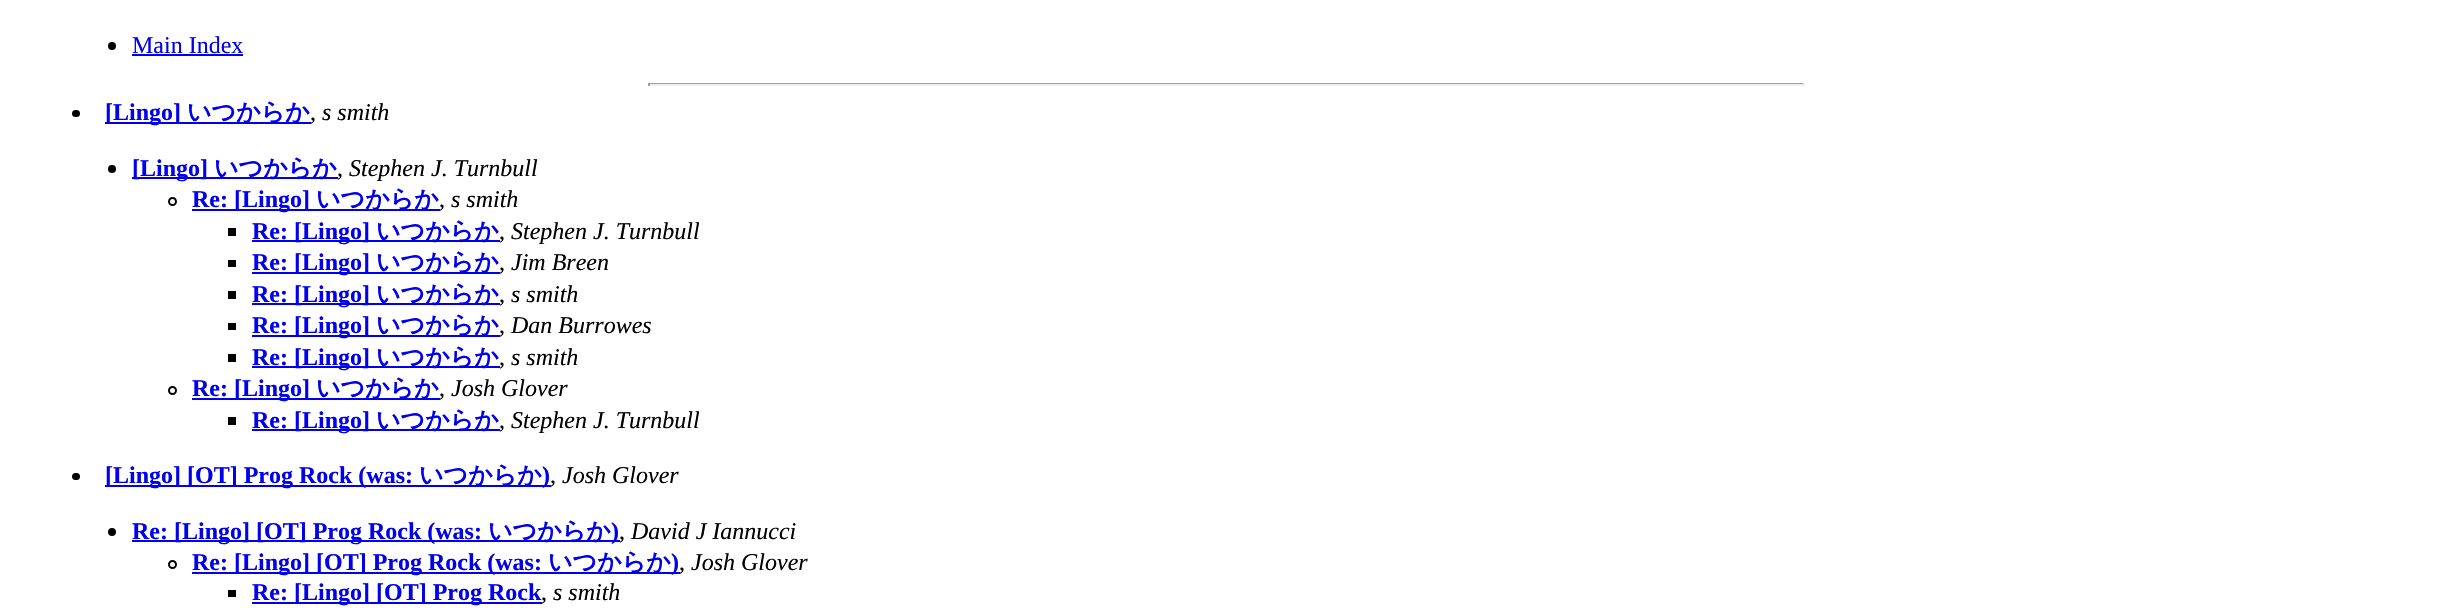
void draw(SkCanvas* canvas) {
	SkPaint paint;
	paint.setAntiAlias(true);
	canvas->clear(0xffffffff);
	paint.setColor(0xff000000);
	canvas->drawCircle(112, 46, 4, paint);
	SkFont f1(fontMgr->matchFamilyStyle("Liberation Serif", SkFontStyle::Normal()), 24);
	f1.setSubpixel(true);
	paint.setColor(0xff0000ee);
	canvas->drawString("Main Index", 132, 53, f1, paint);
	canvas->drawRect(SkRect::MakeXYWH(132, 54, 111, 2), paint);
	paint.setColor(0xff9f9f9f);
	canvas->drawRect(SkRect::MakeXYWH(648, 83, 1157, 1), paint);
	paint.setColor(0xffeeeeee);
	canvas->drawRect(SkRect::MakeXYWH(1803, 83, 2, 3), paint);
	canvas->drawRect(SkRect::MakeXYWH(648, 84, 1157, 2), paint);
	paint.setColor(0xff9f9f9f);
	canvas->drawRect(SkRect::MakeXYWH(648, 83, 2, 3), paint);
	paint.setColor(0xff000000);
	canvas->drawRoundRect(SkRect::MakeXYWH(72, 110, 8, 7), 3.5, 3.5, paint);
	paint.setColor(0xff0000ee);
	canvas->drawRect(SkRect::MakeXYWH(105, 122, 206, 2), paint);
	SkFont f2(fontMgr->matchFamilyStyle("Liberation Serif", SkFontStyle::Bold()), 24);
	f2.setSubpixel(true);
	canvas->drawString("[Lingo]", 105, 120, f2, paint);
	SkFont f3(fontMgr->matchFamilyStyle("WenQuanYi Zen Hei", SkFontStyle::Bold()), 24);
	f3.setSubpixel(true);
	canvas->drawString("いつからか", 187, 120, f3, paint);
	SkFont f4(fontMgr->matchFamilyStyle("Liberation Serif", SkFontStyle::Italic()), 24);
	f4.setSubpixel(true);
	paint.setColor(0xff000000);
	canvas->drawString("s smith", 322, 120, f4, paint);
	canvas->drawString(",", 310, 120, f1, paint);
	canvas->drawCircle(112, 169, 4, paint);
	paint.setColor(0xff0000ee);
	canvas->drawRect(SkRect::MakeXYWH(132, 177, 206, 2), paint);
	canvas->drawString("[Lingo]", 132, 176, f2, paint);
	canvas->drawString("いつからか", 214, 176, f3, paint);
	paint.setColor(0xff000000);
	canvas->drawString("Stephen J. Turnbull", 349, 176, f4, paint);
	canvas->drawString(",", 337, 176, f1, paint);
	paint.setStroke(true);
	paint.setStrokeWidth(2);
	canvas->drawCircle(172.5, 201.5, 3.5, paint);
	paint.setStroke(false);
	paint.setColor(0xff0000ee);
	canvas->drawRect(SkRect::MakeXYWH(192, 209, 248, 2), paint);
	canvas->drawString("Re: [Lingo]", 192, 207, f2, paint);
	canvas->drawString("いつからか", 316, 207, f3, paint);
	paint.setColor(0xff000000);
	canvas->drawString("s smith", 451, 207, f4, paint);
	canvas->drawString(",", 439, 207, f1, paint);
	canvas->drawRect(SkRect::MakeXYWH(228, 228, 8, 8), paint);
	paint.setColor(0xff0000ee);
	canvas->drawRect(SkRect::MakeXYWH(252, 240, 248, 2), paint);
	canvas->drawString("Re: [Lingo]", 252, 239, f2, paint);
	canvas->drawString("いつからか", 376, 239, f3, paint);
	paint.setColor(0xff000000);
	canvas->drawString("Stephen J. Turnbull", 511, 239, f4, paint);
	canvas->drawString(",", 499, 239, f1, paint);
	canvas->drawRect(SkRect::MakeXYWH(228, 260, 8, 7), paint);
	paint.setColor(0xff0000ee);
	canvas->drawRect(SkRect::MakeXYWH(252, 272, 248, 2), paint);
	canvas->drawString("Re: [Lingo]", 252, 270, f2, paint);
	canvas->drawString("いつからか", 376, 270, f3, paint);
	paint.setColor(0xff000000);
	canvas->drawString("Jim Breen", 511, 270, f4, paint);
	canvas->drawString(",", 499, 270, f1, paint);
	canvas->drawRect(SkRect::MakeXYWH(228, 291, 8, 8), paint);
	paint.setColor(0xff0000ee);
	canvas->drawRect(SkRect::MakeXYWH(252, 303, 248, 2), paint);
	canvas->drawString("Re: [Lingo]", 252, 302, f2, paint);
	canvas->drawString("いつからか", 376, 302, f3, paint);
	paint.setColor(0xff000000);
	canvas->drawString("s smith", 511, 302, f4, paint);
	canvas->drawString(",", 499, 302, f1, paint);
	canvas->drawRect(SkRect::MakeXYWH(228, 323, 8, 7), paint);
	paint.setColor(0xff0000ee);
	canvas->drawRect(SkRect::MakeXYWH(252, 335, 248, 2), paint);
	canvas->drawString("Re: [Lingo]", 252, 333, f2, paint);
	canvas->drawString("いつからか", 376, 333, f3, paint);
	paint.setColor(0xff000000);
	canvas->drawString("Dan Burrowes", 511, 333, f4, paint);
	canvas->drawString(",", 499, 333, f1, paint);
	canvas->drawRect(SkRect::MakeXYWH(228, 354, 8, 8), paint);
	paint.setColor(0xff0000ee);
	canvas->drawRect(SkRect::MakeXYWH(252, 366, 248, 2), paint);
	canvas->drawString("Re: [Lingo]", 252, 365, f2, paint);
	canvas->drawString("いつからか", 376, 365, f3, paint);
	paint.setColor(0xff000000);
	canvas->drawString("s smith", 511, 365, f4, paint);
	canvas->drawString(",", 499, 365, f1, paint);
	paint.setStroke(true);
	canvas->drawCircle(172.5, 390.5, 3.5, paint);
	paint.setStroke(false);
	paint.setColor(0xff0000ee);
	canvas->drawRect(SkRect::MakeXYWH(192, 398, 248, 2), paint);
	canvas->drawString("Re: [Lingo]", 192, 396, f2, paint);
	canvas->drawString("いつからか", 316, 396, f3, paint);
	paint.setColor(0xff000000);
	canvas->drawString("Josh Glover", 451, 396, f4, paint);
	canvas->drawString(",", 439, 396, f1, paint);
	canvas->drawRect(SkRect::MakeXYWH(228, 417, 8, 8), paint);
	paint.setColor(0xff0000ee);
	canvas->drawRect(SkRect::MakeXYWH(252, 429, 248, 2), paint);
	canvas->drawString("Re: [Lingo]", 252, 428, f2, paint);
	canvas->drawString("いつからか", 376, 428, f3, paint);
	paint.setColor(0xff000000);
	canvas->drawString("Stephen J. Turnbull", 511, 428, f4, paint);
	canvas->drawString(",", 499, 428, f1, paint);
	canvas->drawRoundRect(SkRect::MakeXYWH(72, 473, 8, 7), 3.5, 3.5, paint);
	paint.setColor(0xff0000ee);
	canvas->drawRect(SkRect::MakeXYWH(105, 485, 446, 2), paint);
	canvas->drawString("[Lingo] [OT] Prog Rock (was:", 105, 483, f2, paint);
	canvas->drawString("いつからか", 419, 483, f3, paint);
	canvas->drawString(")", 542, 483, f2, paint);
	paint.setColor(0xff000000);
	canvas->drawString("Josh Glover", 562, 483, f4, paint);
	canvas->drawString(",", 550, 483, f1, paint);
	canvas->drawCircle(112, 532, 4, paint);
	paint.setColor(0xff0000ee);
	canvas->drawRect(SkRect::MakeXYWH(132, 540, 488, 2), paint);
	canvas->drawString("Re: [Lingo] [OT] Prog Rock (was:", 132, 539, f2, paint);
	canvas->drawString("いつからか", 488, 539, f3, paint);
	canvas->drawString(")", 611, 539, f2, paint);
	paint.setColor(0xff000000);
	canvas->drawString("David J Iannucci", 631, 539, f4, paint);
	canvas->drawString(",", 619, 539, f1, paint);
	paint.setStroke(true);
	canvas->drawCircle(172.5, 564.5, 3.5, paint);
	paint.setStroke(false);
	paint.setColor(0xff0000ee);
	canvas->drawRect(SkRect::MakeXYWH(192, 572, 488, 2), paint);
	canvas->drawString("Re: [Lingo] [OT] Prog Rock (was:", 192, 570, f2, paint);
	canvas->drawString("いつからか", 548, 570, f3, paint);
	canvas->drawString(")", 671, 570, f2, paint);
	paint.setColor(0xff000000);
	canvas->drawString("Josh Glover", 691, 570, f4, paint);
	canvas->drawString(",", 679, 570, f1, paint);
	canvas->drawRect(SkRect::MakeXYWH(228, 590, 8, 7), paint);
	paint.setColor(0xff0000ee);
	canvas->drawRect(SkRect::MakeXYWH(252, 602, 290, 2), paint);
	canvas->drawString("Re: [Lingo] [OT] Prog Rock", 252, 600, f2, paint);
	paint.setColor(0xff000000);
	canvas->drawString("s smith", 553, 600, f4, paint);
	canvas->drawString(",", 541, 600, f1, paint);
}
